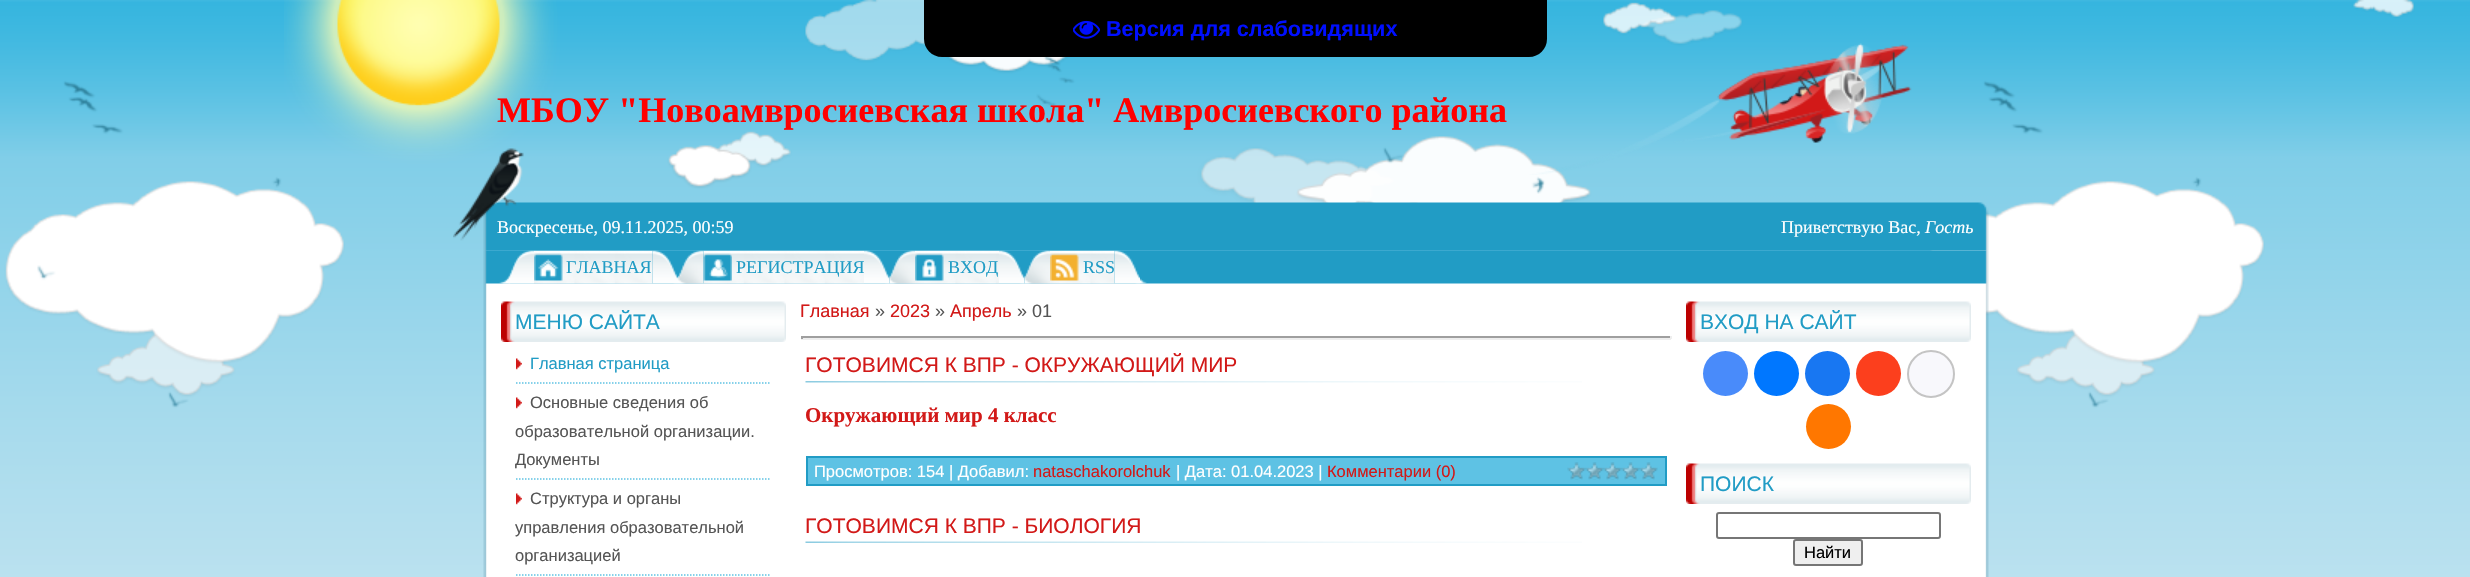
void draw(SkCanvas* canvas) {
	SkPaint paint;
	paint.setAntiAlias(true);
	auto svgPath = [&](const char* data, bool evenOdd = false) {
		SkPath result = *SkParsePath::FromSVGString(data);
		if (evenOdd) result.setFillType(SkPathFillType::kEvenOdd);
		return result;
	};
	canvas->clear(0xffffffff);
	canvas->drawImageRect(SkImages::DeferredFromEncodedData(SkData::MakeFromFileName("img2.png")), SkRect::MakeXYWH(0, 0, 2470, 577), SkSamplingOptions());
	canvas->drawImageRect(SkImages::DeferredFromEncodedData(SkData::MakeFromFileName("img3.png")), SkRect::MakeXYWH(284, 0, 1628, 175), SkSamplingOptions());
	paint.setColor(0xff000000);
	canvas->drawPath(svgPath("M924 0H1547V39C1547 49 1539 57 1529 57H942C932 57 924 49 924 39Z"), paint);
	canvas->drawImageRect(SkImages::DeferredFromEncodedData(SkData::MakeFromFileName("img1.png")), SkRect::MakeXYWH(1073, 20, 27, 19), SkSamplingOptions());
	SkFont f1(fontMgr->matchFamilyStyle("Liberation Sans", SkFontStyle::Bold()), 21.6);
	f1.setSubpixel(true);
	paint.setColor(0xff000fff);
	canvas->drawString("Версия для слабовидящих", 1106, 36, f1, paint);
	SkFont f2(fontMgr->matchFamilyStyle("Liberation Serif", SkFontStyle::Bold()), 36);
	f2.setSubpixel(true);
	paint.setColor(0xffff0000);
	canvas->drawString("МБОУ \"Новоамвросиевская школа\" Амвросиевского района", 497, 122, f2, paint);
	canvas->drawImageRect(SkImages::DeferredFromEncodedData(SkData::MakeFromFileName("img6.png")), SkRect::MakeXYWH(483, 250, 1506, 35), SkSamplingOptions());
	canvas->drawImageRect(SkImages::DeferredFromEncodedData(SkData::MakeFromFileName("img7.png")), SkRect::MakeXYWH(499, 250, 35, 34), SkSamplingOptions());
	canvas->drawImageRect(SkImages::DeferredFromEncodedData(SkData::MakeFromFileName("img8.png")), SkRect::MakeXYWH(534, 250, 119, 34), SkSamplingOptions());
	canvas->drawImageRect(SkImages::DeferredFromEncodedData(SkData::MakeFromFileName("img10.png")), SkRect::MakeXYWH(652, 250, 26, 34), SkSamplingOptions());
	canvas->drawImageRect(SkImages::DeferredFromEncodedData(SkData::MakeFromFileName("img11.png")), SkRect::MakeXYWH(678, 250, 26, 34), SkSamplingOptions());
	canvas->drawImageRect(SkImages::DeferredFromEncodedData(SkData::MakeFromFileName("img12.png")), SkRect::MakeXYWH(703, 250, 161, 34), SkSamplingOptions());
	canvas->drawImageRect(SkImages::DeferredFromEncodedData(SkData::MakeFromFileName("img14.png")), SkRect::MakeXYWH(864, 250, 26, 34), SkSamplingOptions());
	canvas->drawImageRect(SkImages::DeferredFromEncodedData(SkData::MakeFromFileName("img15.png")), SkRect::MakeXYWH(889, 250, 26, 34), SkSamplingOptions());
	canvas->drawImageRect(SkImages::DeferredFromEncodedData(SkData::MakeFromFileName("img16.png")), SkRect::MakeXYWH(915, 250, 84, 34), SkSamplingOptions());
	canvas->drawImageRect(SkImages::DeferredFromEncodedData(SkData::MakeFromFileName("img14.png")), SkRect::MakeXYWH(999, 250, 26, 34), SkSamplingOptions());
	canvas->drawImageRect(SkImages::DeferredFromEncodedData(SkData::MakeFromFileName("img18.png")), SkRect::MakeXYWH(1024, 250, 26, 34), SkSamplingOptions());
	canvas->drawImageRect(SkImages::DeferredFromEncodedData(SkData::MakeFromFileName("img19.png")), SkRect::MakeXYWH(1050, 250, 65, 34), SkSamplingOptions());
	canvas->drawImageRect(SkImages::DeferredFromEncodedData(SkData::MakeFromFileName("img21.png")), SkRect::MakeXYWH(1114, 250, 26, 34), SkSamplingOptions());
	canvas->drawImageRect(SkImages::DeferredFromEncodedData(SkData::MakeFromFileName("img4.png")), SkRect::MakeXYWH(483, 202, 1506, 49), SkSamplingOptions());
	SkFont f3(fontMgr->matchFamilyStyle("Liberation Serif", SkFontStyle::Normal()), 18);
	f3.setSubpixel(true);
	paint.setColor(0xffffffff);
	canvas->drawString("Воскресенье, 09.11.2025, 00:59", 497, 233, f3, paint);
	canvas->drawImageRect(SkImages::DeferredFromEncodedData(SkData::MakeFromFileName("img5.png")), SkRect::MakeXYWH(453, 148, 71, 93), SkSamplingOptions());
	canvas->drawString("Приветствую Вас,", 1781, 233, f3, paint);
	SkFont f4(fontMgr->matchFamilyStyle("Liberation Serif", SkFontStyle::Italic()), 18);
	f4.setSubpixel(true);
	canvas->drawString("Гость", 1925, 233, f4, paint);
	canvas->drawImageRect(SkImages::DeferredFromEncodedData(SkData::MakeFromFileName("img9.png")), SkRect::MakeXYWH(534, 253, 29, 28), SkSamplingOptions());
	paint.setColor(0xff219cc5);
	canvas->drawString("ГЛАВНАЯ", 566, 273, f3, paint);
	canvas->drawImageRect(SkImages::DeferredFromEncodedData(SkData::MakeFromFileName("img13.png")), SkRect::MakeXYWH(703, 253, 29, 28), SkSamplingOptions());
	canvas->drawString("РЕГИСТРАЦИЯ", 736, 273, f3, paint);
	canvas->drawImageRect(SkImages::DeferredFromEncodedData(SkData::MakeFromFileName("img17.png")), SkRect::MakeXYWH(915, 253, 29, 28), SkSamplingOptions());
	canvas->drawString("ВХОД", 948, 273, f3, paint);
	canvas->drawImageRect(SkImages::DeferredFromEncodedData(SkData::MakeFromFileName("img20.png")), SkRect::MakeXYWH(1050, 253, 29, 28), SkSamplingOptions());
	canvas->drawString("RSS", 1083, 273, f3, paint);
	canvas->drawImageRect(SkImages::DeferredFromEncodedData(SkData::MakeFromFileName("img22.png")), SkRect::MakeXYWH(1140, 278, 7, 6), SkSamplingOptions());
	canvas->drawImageRect(SkImages::DeferredFromEncodedData(SkData::MakeFromFileName("img23.png")), SkRect::MakeXYWH(483, 285, 1506, 292), SkSamplingOptions());
	canvas->drawImageRect(SkImages::DeferredFromEncodedData(SkData::MakeFromFileName("img24.png")), SkRect::MakeXYWH(501, 301, 285, 41), SkSamplingOptions());
	SkFont f5(fontMgr->matchFamilyStyle("Liberation Sans", SkFontStyle::Normal()), 21);
	f5.setSubpixel(true);
	canvas->drawString("МЕНЮ САЙТА", 515, 329, f5, paint);
	paint.setStroke(true);
	paint.setStrokeWidth(1.5);
	paint.setColor(0xff5ec2e4);
	paint.setPathEffect(SkDashPathEffect::Make({{1.5f, 1.5f}}, 0));
	canvas->drawPath(svgPath("M516 383H771"), paint);
	paint.setPathEffect(nullptr);
	canvas->drawImageRect(SkImages::DeferredFromEncodedData(SkData::MakeFromFileName("img25.png")), SkRect::MakeXYWH(516, 358, 6, 12), SkSamplingOptions());
	SkFont f6(fontMgr->matchFamilyStyle("Liberation Sans", SkFontStyle::Normal()), 16.5);
	f6.setSubpixel(true);
	paint.setStroke(false);
	paint.setColor(0xff219cc5);
	canvas->drawString("Главная страница", 530, 369, f6, paint);
	paint.setStroke(true);
	paint.setColor(0xff5ec2e4);
	paint.setPathEffect(SkDashPathEffect::Make({{1.5f, 1.5f}}, 0));
	canvas->drawPath(svgPath("M516 479H771"), paint);
	paint.setPathEffect(nullptr);
	canvas->drawImageRect(SkImages::DeferredFromEncodedData(SkData::MakeFromFileName("img25.png")), SkRect::MakeXYWH(516, 397, 6, 12), SkSamplingOptions());
	paint.setStroke(false);
	paint.setColor(0xff555555);
	canvas->drawString("Основные сведения об", 530, 408, f6, paint);
	canvas->drawString("образовательной организации.", 515, 437, f6, paint);
	canvas->drawString("Документы", 515, 465, f6, paint);
	paint.setStroke(true);
	paint.setColor(0xff5ec2e4);
	paint.setPathEffect(SkDashPathEffect::Make({{1.5f, 1.5f}}, 0));
	canvas->drawPath(svgPath("M516 575H771"), paint);
	paint.setPathEffect(nullptr);
	canvas->drawImageRect(SkImages::DeferredFromEncodedData(SkData::MakeFromFileName("img25.png")), SkRect::MakeXYWH(516, 493, 6, 12), SkSamplingOptions());
	paint.setStroke(false);
	paint.setColor(0xff555555);
	canvas->drawString("Структура и органы", 530, 504, f6, paint);
	canvas->drawString("управления образовательной", 515, 533, f6, paint);
	canvas->drawString("организацией", 515, 561, f6, paint);
	SkFont f7(fontMgr->matchFamilyStyle("Liberation Sans", SkFontStyle::Normal()), 18);
	f7.setSubpixel(true);
	paint.setColor(0xffd21918);
	canvas->drawString("Главная", 800, 317, f7, paint);
	paint.setColor(0xff555555);
	canvas->drawString("»", 875, 317, f7, paint);
	paint.setColor(0xffd21918);
	canvas->drawString("2023", 890, 317, f7, paint);
	paint.setColor(0xff555555);
	canvas->drawString("»", 935, 317, f7, paint);
	paint.setColor(0xffd21918);
	canvas->drawString("Апрель", 950, 317, f7, paint);
	paint.setColor(0xff555555);
	canvas->drawString("» 01", 1017, 317, f7, paint);
	paint.setColor(0xff9f9f9f);
	canvas->drawRect(SkRect::MakeXYWH(801, 336, 870, 2), paint);
	paint.setColor(0xffeeeeee);
	canvas->drawRect(SkRect::MakeXYWH(1670, 336, 2, 3), paint);
	canvas->drawRect(SkRect::MakeXYWH(801, 338, 870, 2), paint);
	paint.setColor(0xff9f9f9f);
	canvas->drawRect(SkRect::MakeXYWH(801, 336, 2, 3), paint);
	paint.setColor(0xffd21918);
	canvas->drawString("ГОТОВИМСЯ К ВПР - ОКРУЖАЮЩИЙ МИР", 805, 372, f5, paint);
	canvas->drawImageRect(SkImages::DeferredFromEncodedData(SkData::MakeFromFileName("img26.png")), SkRect::MakeXYWH(805, 381, 777, 2), SkSamplingOptions());
	SkFont f8(fontMgr->matchFamilyStyle("Liberation Serif", SkFontStyle::Bold()), 21);
	f8.setSubpixel(true);
	canvas->drawString("Окружающий мир 4 класс", 805, 422, f8, paint);
	paint.setColor(0xff5ec2e4);
	canvas->drawRect(SkRect::MakeXYWH(807, 457, 859, 28), paint);
	paint.setStroke(true);
	paint.setStrokeWidth(2);
	paint.setColor(0xff219cc5);
	canvas->drawRect(SkRect::MakeXYWH(807, 457, 859, 28), paint);
	paint.setStroke(false);
	paint.setColor(0xffffffff);
	canvas->drawString("Просмотров: 154 | Добавил:", 814, 477, f6, paint);
	paint.setColor(0xffd21918);
	canvas->drawString("nataschakorolchuk", 1033, 477, f6, paint);
	paint.setColor(0xffffffff);
	canvas->drawString("| Дата: 01.04.2023 |", 1176, 477, f6, paint);
	paint.setColor(0xffd21918);
	canvas->drawString("Комментарии (0)", 1327, 477, f6, paint);
	canvas->drawImageRect(SkImages::DeferredFromEncodedData(SkData::MakeFromFileName("img27.png")), SkRect::MakeXYWH(1567, 462, 91, 18), SkSamplingOptions());
	canvas->drawString("ГОТОВИМСЯ К ВПР - БИОЛОГИЯ", 805, 533, f5, paint);
	canvas->drawImageRect(SkImages::DeferredFromEncodedData(SkData::MakeFromFileName("img28.png")), SkRect::MakeXYWH(805, 541, 777, 2), SkSamplingOptions());
	canvas->drawImageRect(SkImages::DeferredFromEncodedData(SkData::MakeFromFileName("img29.png")), SkRect::MakeXYWH(1686, 301, 285, 41), SkSamplingOptions());
	paint.setColor(0xff219cc5);
	canvas->drawString("ВХОД НА САЙТ", 1700, 329, f5, paint);
	paint.setColor(0xff498bfa);
	canvas->drawCircle(1725.5, 373.5, 22.5, paint);
	paint.setColor(0xff0077ff);
	canvas->drawCircle(1776.5, 373.5, 22.5, paint);
	paint.setColor(0xff1877f2);
	canvas->drawCircle(1827.5, 373.5, 22.5, paint);
	paint.setColor(0xfffc3f1d);
	canvas->drawCircle(1878.5, 373.5, 22.5, paint);
	paint.setColor(0xfff8f8fc);
	canvas->drawCircle(1931, 374, 23, paint);
	paint.setStroke(true);
	paint.setColor(0xffc4c4c4);
	canvas->drawCircle(1931, 374, 23, paint);
	paint.setStroke(false);
	paint.setColor(0xffff7700);
	canvas->drawCircle(1828.5, 426.5, 22.5, paint);
	canvas->drawImageRect(SkImages::DeferredFromEncodedData(SkData::MakeFromFileName("img29.png")), SkRect::MakeXYWH(1686, 463, 285, 41), SkSamplingOptions());
	paint.setColor(0xff219cc5);
	canvas->drawString("ПОИСК", 1700, 491, f5, paint);
	paint.setStroke(true);
	paint.setColor(0xff767676);
	canvas->drawRoundRect(SkRect::MakeXYWH(1717, 513, 223, 25), 2, 2, paint);
	paint.setStroke(false);
	paint.setColor(0xffefefef);
	canvas->drawRoundRect(SkRect::MakeXYWH(1794, 540, 68, 25), 2, 2, paint);
	paint.setStroke(true);
	paint.setColor(0xff767676);
	canvas->drawRoundRect(SkRect::MakeXYWH(1794, 540, 68, 25), 2, 2, paint);
	paint.setStroke(false);
	paint.setColor(0xff000000);
	canvas->drawString("Найти", 1804, 558, f6, paint);
}
